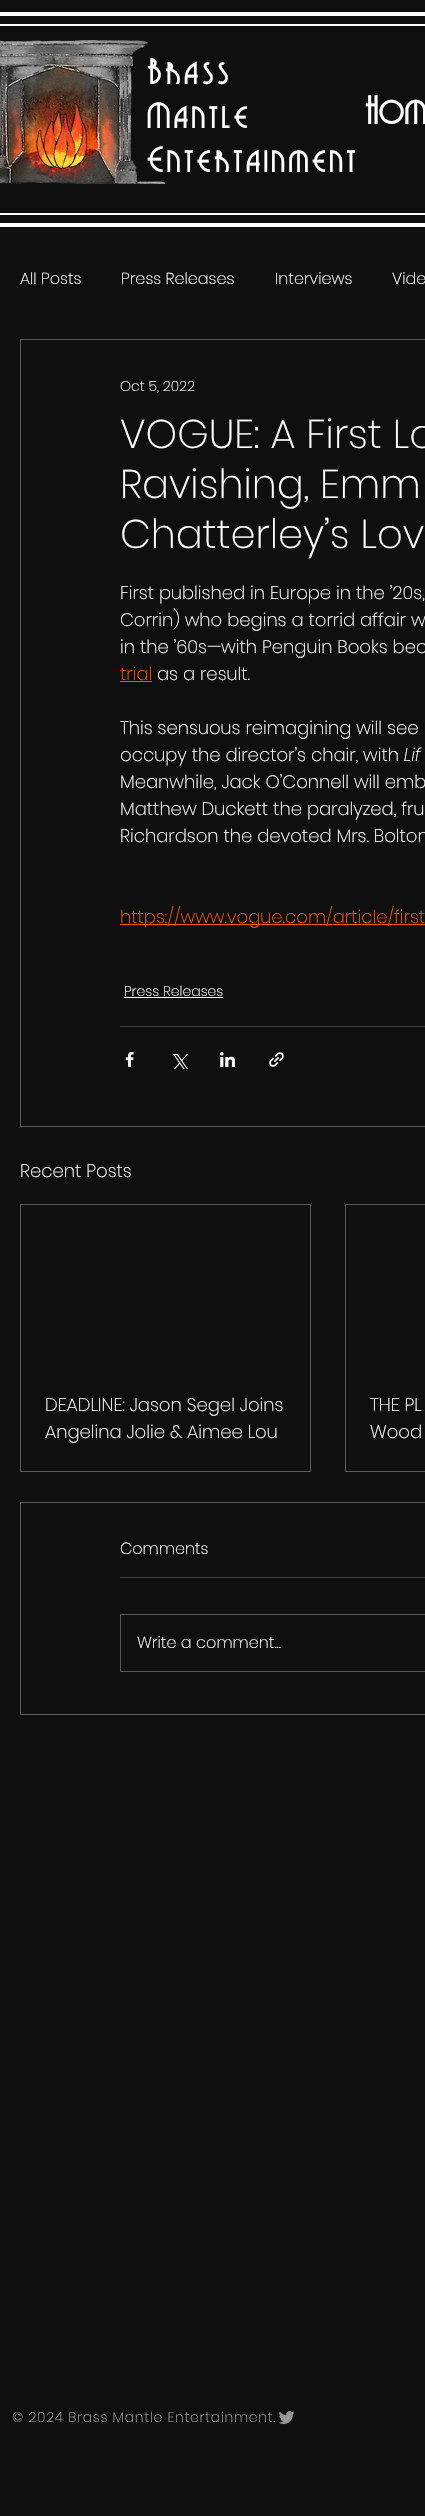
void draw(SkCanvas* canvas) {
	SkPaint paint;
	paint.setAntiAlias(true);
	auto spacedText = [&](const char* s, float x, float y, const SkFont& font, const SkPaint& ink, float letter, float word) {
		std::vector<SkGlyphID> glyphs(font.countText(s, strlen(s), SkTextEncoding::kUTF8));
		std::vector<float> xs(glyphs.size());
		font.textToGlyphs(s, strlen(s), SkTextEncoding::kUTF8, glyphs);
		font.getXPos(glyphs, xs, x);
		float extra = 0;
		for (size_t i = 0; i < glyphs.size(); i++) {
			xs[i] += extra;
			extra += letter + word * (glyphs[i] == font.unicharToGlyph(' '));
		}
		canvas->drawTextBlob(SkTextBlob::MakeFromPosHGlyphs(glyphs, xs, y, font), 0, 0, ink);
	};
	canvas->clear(0xff0f0f0f);
	paint.setColor(0xffffffff);
	canvas->drawRect(SkRect::MakeXYWH(0, 12, 425, 4), paint);
	canvas->drawRect(SkRect::MakeXYWH(0, 223, 425, 4), paint);
	canvas->drawRect(SkRect::MakeXYWH(0, 24, 425, 2), paint);
	canvas->drawRect(SkRect::MakeXYWH(0, 213, 425, 2), paint);
	SkFont f1(fontMgr->matchFamilyStyle("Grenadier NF", SkFontStyle::Normal()), 34);
	f1.setSubpixel(true);
	spacedText("Brass", 147, 84, f1, paint, 3.4, 0);
	spacedText("Mantle", 147, 128, f1, paint, 3.4, 0);
	spacedText("Entertainment", 147, 172, f1, paint, 3.4, 0);
	canvas->drawImageRect(SkImages::DeferredFromEncodedData(SkData::MakeFromFileName("img1.png")), SkRect::MakeXYWH(0, 40, 166, 144), SkSamplingOptions());
	SkFont f2(fontMgr->matchFamilyStyle("Grenadier NF", SkFontStyle::Normal()), 38);
	f2.setSubpixel(true);
	canvas->drawString("Hom", 365, 124, f2, paint);
	SkFont f3(fontMgr->matchFamilyStyle("Poppins", SkFontStyle(200, SkFontStyle::kNormal_Width, SkFontStyle::kUpright_Slant)), 16);
	f3.setSubpixel(true);
	canvas->drawString("All Posts", 20, 284, f3, paint);
	canvas->drawString("Press Releases", 121, 284, f3, paint);
	canvas->drawString("Interviews", 275, 284, f3, paint);
	canvas->drawString("Vide", 392, 284, f3, paint);
	paint.setStroke(true);
	paint.setStrokeWidth(1);
	paint.setColor(0xff5a5a5a);
	canvas->drawRect(SkRect::MakeXYWH(20.5, 339.5, 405, 787), paint);
	SkFont f4(fontMgr->matchFamilyStyle("Poppins", SkFontStyle(200, SkFontStyle::kNormal_Width, SkFontStyle::kUpright_Slant)), 14);
	f4.setSubpixel(true);
	paint.setStroke(false);
	paint.setColor(0xffffffff);
	canvas->drawString("Oct 5, 2022", 120, 391, f4, paint);
	SkFont f5(fontMgr->matchFamilyStyle("Poppins", SkFontStyle(200, SkFontStyle::kNormal_Width, SkFontStyle::kUpright_Slant)), 40);
	f5.setSubpixel(true);
	canvas->drawString("VOGUE: A First Lo", 120, 448, f5, paint);
	canvas->drawString("Ravishing, Emm", 120, 498, f5, paint);
	canvas->drawString("Chatterley’s Lov", 120, 548, f5, paint);
	SkFont f6(fontMgr->matchFamilyStyle("Poppins", SkFontStyle(200, SkFontStyle::kNormal_Width, SkFontStyle::kUpright_Slant)), 18);
	f6.setSubpixel(true);
	canvas->drawString("First published in Europe in the ’20s,", 120, 599, f6, paint);
	canvas->drawString("Corrin) who begins a torrid affair w", 120, 626, f6, paint);
	canvas->drawString("in the ’60s—with Penguin Books bec", 120, 653, f6, paint);
	paint.setColor(0xffff5900);
	canvas->drawString("trial", 120, 680, f6, paint);
	canvas->drawRect(SkRect::MakeXYWH(120, 681, 32, 1), paint);
	paint.setColor(0xffffffff);
	canvas->drawString("as a result.", 157, 680, f6, paint);
	canvas->drawString("This sensuous reimagining will see", 120, 734, f6, paint);
	canvas->drawString("occupy the director’s chair, with", 120, 761, f6, paint);
	SkFont f7(fontMgr->matchFamilyStyle("Poppins", SkFontStyle(200, SkFontStyle::kNormal_Width, SkFontStyle::kItalic_Slant)), 18);
	f7.setSubpixel(true);
	canvas->drawString("Lif", 404, 761, f7, paint);
	canvas->drawString("Meanwhile, Jack O’Connell will emb", 120, 788, f6, paint);
	canvas->drawString("Matthew Duckett the paralyzed, fru", 120, 815, f6, paint);
	canvas->drawString("Richardson the devoted Mrs. Bolton", 120, 842, f6, paint);
	paint.setColor(0xffff5900);
	canvas->drawRect(SkRect::MakeXYWH(120, 924, 305, 1), paint);
	canvas->drawString("https://www.vogue.com/article/first", 120, 923, f6, paint);
	paint.setColor(0xffffffff);
	canvas->drawString("Press Releases", 124, 996, f4, paint);
	canvas->drawRect(SkRect::MakeXYWH(124, 997, 99, 1), paint);
	paint.setColor(0xff3f3f3f);
	canvas->drawRect(SkRect::MakeXYWH(120, 1026, 305, 1), paint);
	canvas->drawImageRect(SkImages::DeferredFromEncodedData(SkData::MakeFromFileName("img2.png")), SkRect::MakeXYWH(125, 1052, 9, 15), SkSamplingOptions());
	canvas->drawImageRect(SkImages::DeferredFromEncodedData(SkData::MakeFromFileName("img3.png")), SkRect::MakeXYWH(173, 1054, 15, 15), SkSamplingOptions());
	canvas->drawImageRect(SkImages::DeferredFromEncodedData(SkData::MakeFromFileName("img4.png")), SkRect::MakeXYWH(220, 1052, 15, 15), SkSamplingOptions());
	canvas->drawImageRect(SkImages::DeferredFromEncodedData(SkData::MakeFromFileName("img5.png")), SkRect::MakeXYWH(269, 1052, 15, 15), SkSamplingOptions());
	paint.setColor(0xffffffff);
	canvas->drawString("Recent Posts", 20, 1177, f6, paint);
	paint.setStroke(true);
	paint.setColor(0xff5a5a5a);
	canvas->drawRect(SkRect::MakeXYWH(20.5, 1204.5, 290, 267), paint);
	paint.setStroke(false);
	paint.setColor(0xffffffff);
	canvas->drawString("DEADLINE: Jason Segel Joins", 45, 1411, f6, paint);
	canvas->drawString("Angelina Jolie & Aimee Lou", 45, 1438, f6, paint);
	paint.setStroke(true);
	paint.setColor(0xff5a5a5a);
	canvas->drawRect(SkRect::MakeXYWH(345.5, 1204.5, 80, 267), paint);
	paint.setStroke(false);
	paint.setColor(0xffffffff);
	canvas->drawString("THE PL", 370, 1411, f6, paint);
	canvas->drawString("Wood", 370, 1438, f6, paint);
	paint.setStroke(true);
	paint.setColor(0xff5a5a5a);
	canvas->drawRect(SkRect::MakeXYWH(20.5, 1502.5, 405, 212), paint);
	paint.setStroke(false);
	paint.setColor(0xffffffff);
	canvas->drawString("Comments", 120, 1554, f3, paint);
	paint.setColor(0xff3f3f3f);
	canvas->drawRect(SkRect::MakeXYWH(120, 1577, 305, 1), paint);
	paint.setStroke(true);
	paint.setColor(0xff575757);
	canvas->drawRect(SkRect::MakeXYWH(120.5, 1614.5, 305, 57), paint);
	paint.setStroke(false);
	paint.setColor(0xffffffff);
	canvas->drawString("Write a comment...", 137, 1648, f3, paint);
	paint.setColor(0xffa8a8a8);
	spacedText("© 2024 Brass Mantle Entertainment.", 12, 2422, f4, paint, 0.7, 0);
	canvas->drawImageRect(SkImages::DeferredFromEncodedData(SkData::MakeFromFileName("img6.png")), SkRect::MakeXYWH(278, 2411, 17, 14), SkSamplingOptions());
}
